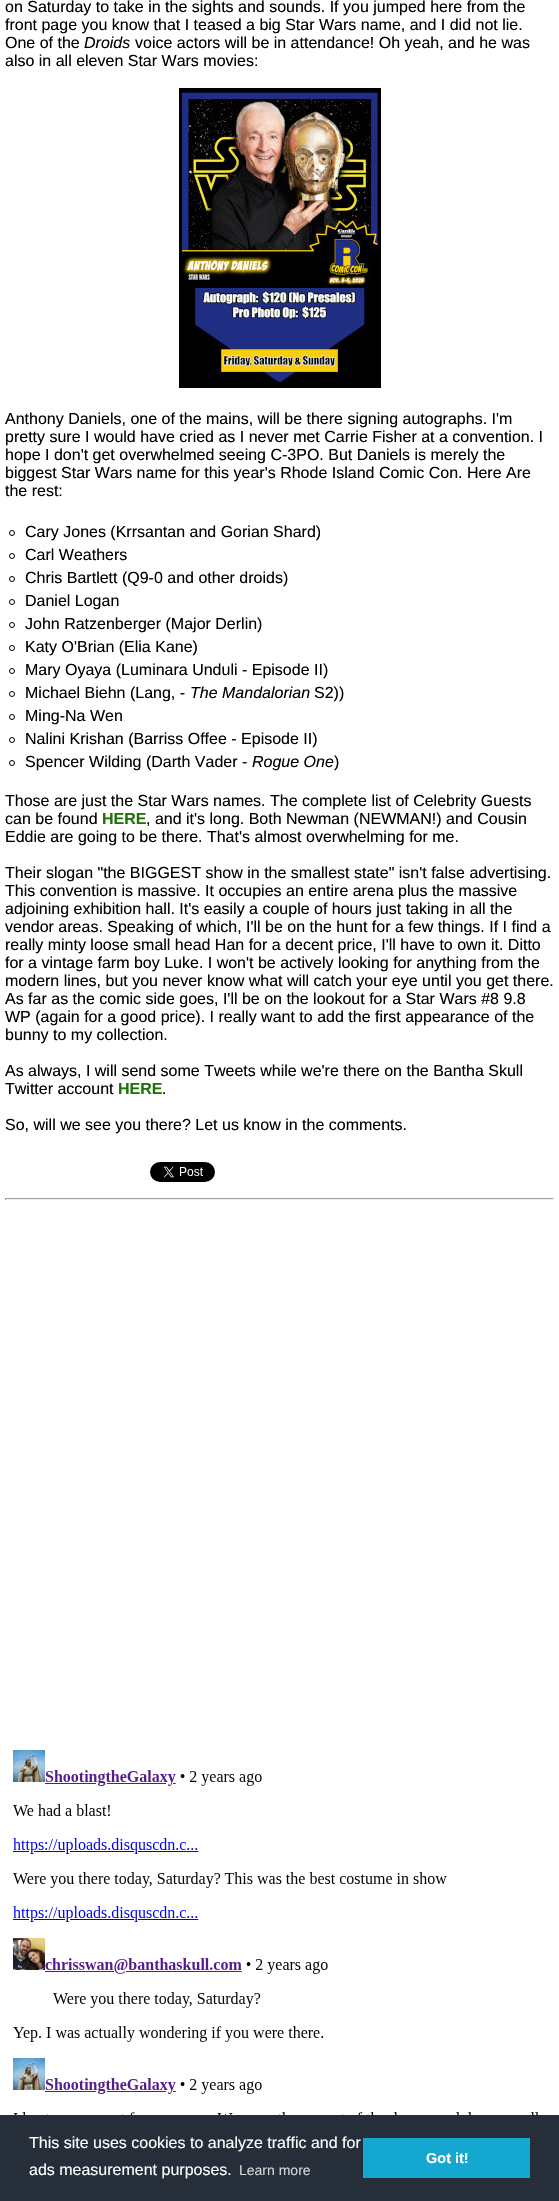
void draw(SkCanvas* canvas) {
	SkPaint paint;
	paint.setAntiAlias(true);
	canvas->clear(0xffffffff);
	SkFont f1(fontMgr->matchFamilyStyle("Liberation Sans", SkFontStyle::Normal()), 16);
	f1.setSubpixel(true);
	paint.setColor(0xff000000);
	canvas->drawString("on Saturday to take in the sights and sounds. If you jumped here from the", 5, 12, f1, paint);
	canvas->drawString("front page you know that I teased a big Star Wars name, and I did not lie.", 5, 30, f1, paint);
	canvas->drawString("One of the", 5, 48, f1, paint);
	SkFont f2(fontMgr->matchFamilyStyle("Liberation Sans", SkFontStyle::Italic()), 16);
	f2.setSubpixel(true);
	canvas->drawString("Droids", 84, 48, f2, paint);
	canvas->drawString("voice actors will be in attendance! Oh yeah, and he was", 135, 48, f1, paint);
	canvas->drawString("also in all eleven Star Wars movies:", 5, 66, f1, paint);
	canvas->drawImageRect(SkImages::DeferredFromEncodedData(SkData::MakeFromFileName("img1.png")), SkRect::MakeXYWH(179, 88, 202, 300), SkSamplingOptions());
	canvas->drawString("Anthony Daniels, one of the mains, will be there signing autographs. I'm", 5, 424, f1, paint);
	canvas->drawString("pretty sure I would have cried as I never met Carrie Fisher at a convention. I", 5, 442, f1, paint);
	canvas->drawString("hope I don't get overwhelmed seeing C-3PO. But Daniels is merely the", 5, 460, f1, paint);
	canvas->drawString("biggest Star Wars name for this year's Rhode Island Comic Con. Here Are", 5, 478, f1, paint);
	canvas->drawString("the rest:", 5, 496, f1, paint);
	paint.setStroke(true);
	paint.setStrokeWidth(1);
	canvas->drawCircle(12, 533, 2.5, paint);
	paint.setStroke(false);
	canvas->drawString("Cary Jones (Krrsantan and Gorian Shard)", 25, 537, f1, paint);
	paint.setStroke(true);
	canvas->drawCircle(12, 556, 2.5, paint);
	paint.setStroke(false);
	canvas->drawString("Carl Weathers", 25, 560, f1, paint);
	paint.setStroke(true);
	canvas->drawCircle(12, 579, 2.5, paint);
	paint.setStroke(false);
	canvas->drawString("Chris Bartlett (Q9-0 and other droids)", 25, 583, f1, paint);
	paint.setStroke(true);
	canvas->drawCircle(12, 602, 2.5, paint);
	paint.setStroke(false);
	canvas->drawString("Daniel Logan", 25, 606, f1, paint);
	paint.setStroke(true);
	canvas->drawCircle(12, 625, 2.5, paint);
	paint.setStroke(false);
	canvas->drawString("John Ratzenberger (Major Derlin)", 25, 629, f1, paint);
	paint.setStroke(true);
	canvas->drawCircle(12, 648, 2.5, paint);
	paint.setStroke(false);
	canvas->drawString("Katy O'Brian (Elia Kane)", 25, 652, f1, paint);
	paint.setStroke(true);
	canvas->drawCircle(12, 671, 2.5, paint);
	paint.setStroke(false);
	canvas->drawString("Mary Oyaya (Luminara Unduli - Episode II)", 25, 675, f1, paint);
	paint.setStroke(true);
	canvas->drawCircle(12, 694, 2.5, paint);
	paint.setStroke(false);
	canvas->drawString("Michael Biehn (Lang, -", 25, 698, f1, paint);
	canvas->drawString("The Mandalorian", 190, 698, f2, paint);
	canvas->drawString("S2))", 314, 698, f1, paint);
	paint.setStroke(true);
	canvas->drawCircle(12, 717, 2.5, paint);
	paint.setStroke(false);
	canvas->drawString("Ming-Na Wen", 25, 721, f1, paint);
	paint.setStroke(true);
	canvas->drawCircle(12, 740, 2.5, paint);
	paint.setStroke(false);
	canvas->drawString("Nalini Krishan (Barriss Offee - Episode II)", 25, 744, f1, paint);
	paint.setStroke(true);
	canvas->drawCircle(12, 763, 2.5, paint);
	paint.setStroke(false);
	canvas->drawString("Spencer Wilding (Darth Vader -", 25, 767, f1, paint);
	canvas->drawString("Rogue One", 252, 767, f2, paint);
	canvas->drawString(")", 334, 767, f1, paint);
	canvas->drawString("Those are just the Star Wars names. The complete list of Celebrity Guests", 5, 806, f1, paint);
	canvas->drawString("can be found", 5, 824, f1, paint);
	SkFont f3(fontMgr->matchFamilyStyle("Liberation Sans", SkFontStyle::Bold()), 16);
	f3.setSubpixel(true);
	paint.setColor(0xff1f7208);
	canvas->drawString("HERE", 102, 824, f3, paint);
	paint.setColor(0xff000000);
	canvas->drawString(", and it's long. Both Newman (NEWMAN!) and Cousin", 146, 824, f1, paint);
	canvas->drawString("Eddie are going to be there. That's almost overwhelming for me.", 5, 842, f1, paint);
	canvas->drawString("Their slogan \"the BIGGEST show in the smallest state\" isn't false advertising.", 5, 878, f1, paint);
	canvas->drawString("This convention is massive. It occupies an entire arena plus the massive", 5, 896, f1, paint);
	canvas->drawString("adjoining exhibition hall. It's easily a couple of hours just taking in all the", 5, 914, f1, paint);
	canvas->drawString("vendor areas. Speaking of which, I'll be on the hunt for a few things. If I find a", 5, 932, f1, paint);
	canvas->drawString("really minty loose small head Han for a decent price, I'll have to own it. Ditto", 5, 950, f1, paint);
	canvas->drawString("for a vintage farm boy Luke. I won't be actively looking for anything from the", 5, 968, f1, paint);
	canvas->drawString("modern lines, but you never know what will catch your eye until you get there.", 5, 986, f1, paint);
	canvas->drawString("As far as the comic side goes, I'll be on the lookout for a Star Wars #8 9.8", 5, 1004, f1, paint);
	canvas->drawString("WP (again for a good price). I really want to add the first appearance of the", 5, 1022, f1, paint);
	canvas->drawString("bunny to my collection.", 5, 1040, f1, paint);
	canvas->drawString("As always, I will send some Tweets while we're there on the Bantha Skull", 5, 1076, f1, paint);
	canvas->drawString("Twitter account", 5, 1094, f1, paint);
	paint.setColor(0xff1f7208);
	canvas->drawString("HERE", 118, 1094, f3, paint);
	paint.setColor(0xff000000);
	canvas->drawString(".", 162, 1094, f1, paint);
	canvas->drawString("So, will we see you there? Let us know in the comments.", 5, 1130, f1, paint);
	canvas->drawImageRect(SkImages::DeferredFromEncodedData(SkData::MakeFromFileName("img2.png")), SkRect::MakeXYWH(150, 1162, 65, 20), SkSamplingOptions());
	paint.setColor(0xff9f9f9f);
	canvas->drawRect(SkRect::MakeXYWH(5, 1198, 549, 1), paint);
	paint.setColor(0xffeeeeee);
	canvas->drawRect(SkRect::MakeXYWH(553, 1198, 1, 2), paint);
	canvas->drawRect(SkRect::MakeXYWH(5, 1199, 549, 1), paint);
	paint.setColor(0xff9f9f9f);
	canvas->drawRect(SkRect::MakeXYWH(5, 1198, 1, 2), paint);
	canvas->drawImageRect(SkImages::DeferredFromEncodedData(SkData::MakeFromFileName("img3.png")), SkRect::MakeXYWH(13, 1750, 525, 365), SkSamplingOptions());
	paint.setColor(0xff252e39);
	canvas->drawRect(SkRect::MakeXYWH(0, 2115, 559, 86), paint);
	paint.setColor(0xffffffff);
	canvas->drawString("This site uses cookies to analyze traffic and for", 29, 2148, f1, paint);
	canvas->drawString("ads measurement purposes.", 29, 2175, f1, paint);
	SkFont f4(fontMgr->matchFamilyStyle("Liberation Sans", SkFontStyle::Normal()), 14);
	f4.setSubpixel(true);
	paint.setColor(0xffd3d5d7);
	canvas->drawString("Learn more", 239, 2175, f4, paint);
	paint.setColor(0xff14a7d0);
	canvas->drawRect(SkRect::MakeXYWH(363, 2138, 167, 40), paint);
	SkFont f5(fontMgr->matchFamilyStyle("Liberation Sans", SkFontStyle::Bold()), 14.5);
	f5.setSubpixel(true);
	paint.setColor(0xffffffff);
	canvas->drawString("Got it!", 426, 2163, f5, paint);
}
